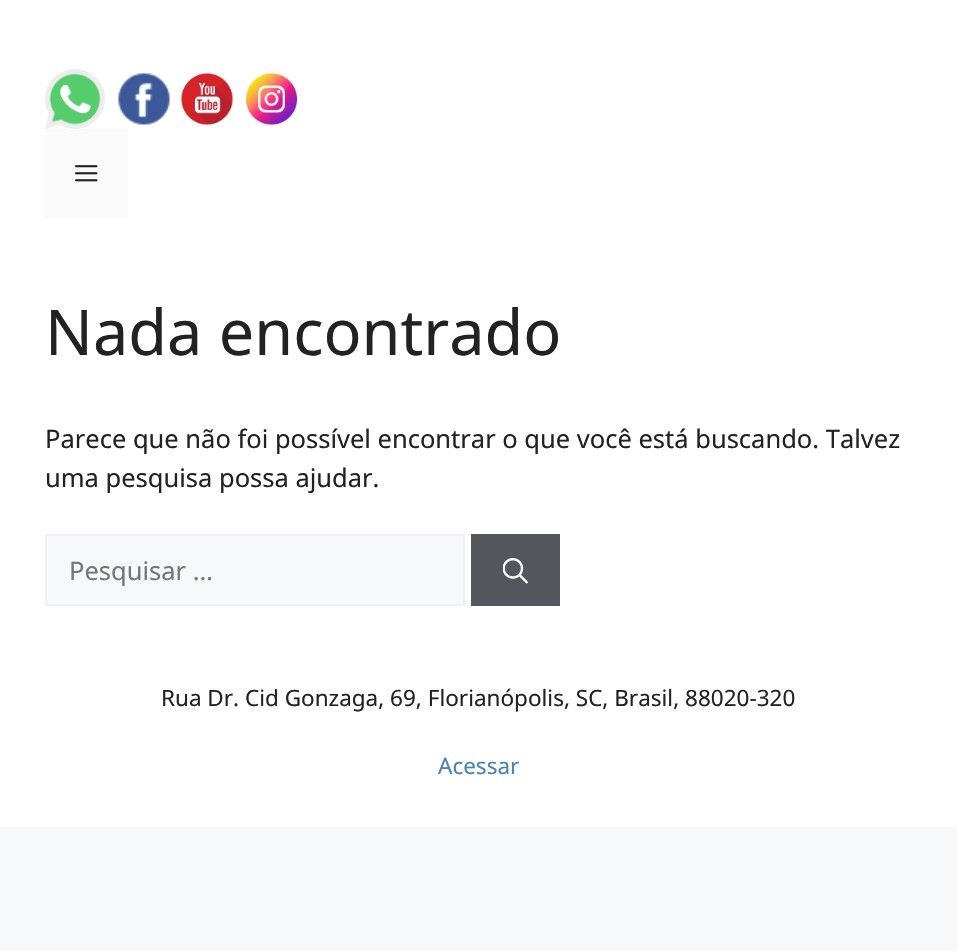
void draw(SkCanvas* canvas) {
	SkPaint paint;
	paint.setAntiAlias(true);
	canvas->clear(0xfff7f8f9);
	paint.setColor(0xffffffff);
	canvas->drawRect(SkRect::MakeXYWH(0, 0, 957, 827), paint);
	canvas->drawImageRect(SkImages::DeferredFromEncodedData(SkData::MakeFromFileName("img1.png")), SkRect::MakeXYWH(45, 69, 60, 60), SkSamplingOptions());
	canvas->drawImageRect(SkImages::DeferredFromEncodedData(SkData::MakeFromFileName("img2.png")), SkRect::MakeXYWH(118, 73, 52, 52), SkSamplingOptions());
	canvas->drawImageRect(SkImages::DeferredFromEncodedData(SkData::MakeFromFileName("img3.png")), SkRect::MakeXYWH(181, 73, 52, 52), SkSamplingOptions());
	canvas->drawImageRect(SkImages::DeferredFromEncodedData(SkData::MakeFromFileName("img4.png")), SkRect::MakeXYWH(246, 73, 51, 52), SkSamplingOptions());
	paint.setColor(0xfffafafa);
	canvas->drawRect(SkRect::MakeXYWH(45, 129, 83, 90), paint);
	canvas->drawImageRect(SkImages::DeferredFromEncodedData(SkData::MakeFromFileName("img5.png")), SkRect::MakeXYWH(75, 165, 23, 17), SkSamplingOptions());
	SkFont f1(fontMgr->matchFamilyStyle("Noto Sans", SkFontStyle::Normal()), 63);
	f1.setSubpixel(true);
	paint.setColor(0xff222222);
	canvas->drawString("Nada encontrado", 45, 355, f1, paint);
	SkFont f2(fontMgr->matchFamilyStyle("Noto Sans", SkFontStyle::Normal()), 25.5);
	f2.setSubpixel(true);
	canvas->drawString("Parece que não foi possível encontrar o que você está buscando. Talvez", 45, 448, f2, paint);
	canvas->drawString("uma pesquisa possa ajudar.", 45, 487, f2, paint);
	paint.setColor(0xfff7f8f9);
	canvas->drawRect(SkRect::MakeXYWH(46, 535, 418, 70), paint);
	paint.setStroke(true);
	paint.setStrokeWidth(2);
	paint.setColor(0xfff0f0f0);
	canvas->drawRect(SkRect::MakeXYWH(46, 535, 418, 70), paint);
	paint.setStroke(false);
	paint.setColor(0xff757575);
	canvas->drawString("Pesquisar …", 69, 580, f2, paint);
	paint.setColor(0xff55555e);
	canvas->drawRect(SkRect::MakeXYWH(471, 534, 89, 72), paint);
	canvas->drawImageRect(SkImages::DeferredFromEncodedData(SkData::MakeFromFileName("img6.png")), SkRect::MakeXYWH(503, 558, 25, 26), SkSamplingOptions());
	SkFont f3(fontMgr->matchFamilyStyle("Noto Sans", SkFontStyle::Normal()), 22.5);
	f3.setSubpixel(true);
	paint.setColor(0xff222222);
	canvas->drawString("Rua Dr. Cid Gonzaga, 69, Florianópolis, SC, Brasil, 88020-320", 161, 706, f3, paint);
	paint.setColor(0xff4682b4);
	canvas->drawString("Acessar", 438, 774, f3, paint);
}
